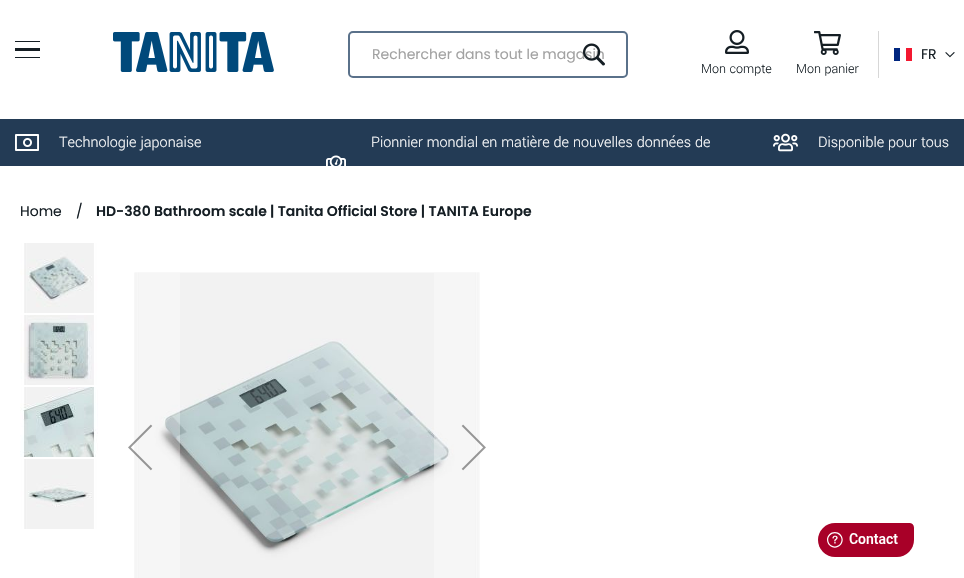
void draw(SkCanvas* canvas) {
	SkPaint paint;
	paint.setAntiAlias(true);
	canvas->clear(0xffffffff);
	paint.setColor(0xff151e24);
	canvas->drawRect(SkRect::MakeXYWH(15, 41, 25, 1), paint);
	canvas->drawRect(SkRect::MakeXYWH(15, 57, 25, 1), paint);
	canvas->drawRect(SkRect::MakeXYWH(15, 48, 25, 3), paint);
	canvas->drawImageRect(SkImages::DeferredFromEncodedData(SkData::MakeFromFileName("img1.png")), SkRect::MakeXYWH(113, 32, 161, 40), SkSamplingOptions());
	paint.setStroke(true);
	paint.setStrokeWidth(2);
	paint.setColor(0xff5a718a);
	canvas->drawRoundRect(SkRect::MakeXYWH(349, 32, 278, 45), 4, 4, paint);
	SkFont f1(fontMgr->matchFamilyStyle("Poppins", SkFontStyle::Normal()), 14);
	f1.setSubpixel(true);
	paint.setStroke(false);
	paint.setColor(0xffa2a2a2);
	canvas->drawString("Rechercher dans tout le magasin", 372, 59, f1, paint);
	canvas->drawImageRect(SkImages::DeferredFromEncodedData(SkData::MakeFromFileName("img2.png")), SkRect::MakeXYWH(583, 43, 22, 23), SkSamplingOptions());
	paint.setColor(0xff151e24);
	canvas->drawString("FR", 921, 59, f1, paint);
	paint.setColor(0xff00267f);
	canvas->drawRect(SkRect::MakeXYWH(894, 48, 6, 13), paint);
	paint.setColor(0xfff31830);
	canvas->drawRect(SkRect::MakeXYWH(906, 48, 6, 13), paint);
	canvas->drawImageRect(SkImages::DeferredFromEncodedData(SkData::MakeFromFileName("img3.png")), SkRect::MakeXYWH(945, 52, 10, 6), SkSamplingOptions());
	canvas->drawImageRect(SkImages::DeferredFromEncodedData(SkData::MakeFromFileName("img4.png")), SkRect::MakeXYWH(725, 30, 24, 24), SkSamplingOptions());
	SkFont f2(fontMgr->matchFamilyStyle("Yantramanav", SkFontStyle(300, SkFontStyle::kNormal_Width, SkFontStyle::kUpright_Slant)), 14);
	f2.setSubpixel(true);
	paint.setColor(0xff151e24);
	canvas->drawString("Mon compte", 701, 73, f2, paint);
	paint.setColor(0xffd7d7d7);
	canvas->drawRect(SkRect::MakeXYWH(878, 31, 1, 47), paint);
	canvas->drawImageRect(SkImages::DeferredFromEncodedData(SkData::MakeFromFileName("img5.png")), SkRect::MakeXYWH(814, 31, 27, 24), SkSamplingOptions());
	paint.setColor(0xff151e24);
	canvas->drawString("Mon panier", 796, 73, f2, paint);
	paint.setColor(0xff233b55);
	canvas->drawRect(SkRect::MakeXYWH(0, 119, 964, 47), paint);
	canvas->drawImageRect(SkImages::DeferredFromEncodedData(SkData::MakeFromFileName("img6.png")), SkRect::MakeXYWH(15, 134, 24, 17), SkSamplingOptions());
	SkFont f3(fontMgr->matchFamilyStyle("Yantramanav", SkFontStyle(300, SkFontStyle::kNormal_Width, SkFontStyle::kUpright_Slant)), 16);
	f3.setSubpixel(true);
	paint.setColor(0xffffffff);
	canvas->drawString("Technologie japonaise", 59, 147, f3, paint);
	canvas->drawString("Pionnier mondial en matière de nouvelles données de", 371, 147, f3, paint);
	canvas->drawImageRect(SkImages::DeferredFromEncodedData(SkData::MakeFromFileName("img7.png")), SkRect::MakeXYWH(326, 155, 20, 11), SkSamplingOptions());
	canvas->drawImageRect(SkImages::DeferredFromEncodedData(SkData::MakeFromFileName("img8.png")), SkRect::MakeXYWH(773, 133, 25, 19), SkSamplingOptions());
	canvas->drawString("Disponible pour tous", 818, 147, f3, paint);
	paint.setColor(0xff151e24);
	canvas->drawString("Home", 20, 216, f1, paint);
	canvas->drawString("/", 76, 216, f1, paint);
	SkFont f4(fontMgr->matchFamilyStyle("Poppins", SkFontStyle(600, SkFontStyle::kNormal_Width, SkFontStyle::kUpright_Slant)), 14);
	f4.setSubpixel(true);
	canvas->drawString("HD-380 Bathroom scale | Tanita Official Store | TANITA Europe", 96, 216, f4, paint);
	canvas->drawImageRect(SkImages::DeferredFromEncodedData(SkData::MakeFromFileName("img9.png")), SkRect::MakeXYWH(20, 243, 78, 70), SkSamplingOptions());
	canvas->drawImageRect(SkImages::DeferredFromEncodedData(SkData::MakeFromFileName("img10.png")), SkRect::MakeXYWH(20, 315, 78, 70), SkSamplingOptions());
	canvas->drawImageRect(SkImages::DeferredFromEncodedData(SkData::MakeFromFileName("img11.png")), SkRect::MakeXYWH(20, 387, 78, 70), SkSamplingOptions());
	canvas->drawImageRect(SkImages::DeferredFromEncodedData(SkData::MakeFromFileName("img12.png")), SkRect::MakeXYWH(20, 459, 78, 70), SkSamplingOptions());
	canvas->drawImageRect(SkImages::DeferredFromEncodedData(SkData::MakeFromFileName("img13.png")), SkRect::MakeXYWH(134, 272, 346, 306), SkSamplingOptions());
	paint.setColor(0x4dffffff);
	canvas->drawRect(SkRect::MakeXYWH(135, 273, 45, 305), paint);
	canvas->drawImageRect(SkImages::DeferredFromEncodedData(SkData::MakeFromFileName("img14.png")), SkRect::MakeXYWH(128, 424, 25, 47), SkSamplingOptions());
	canvas->drawRect(SkRect::MakeXYWH(434, 273, 46, 305), paint);
	canvas->drawImageRect(SkImages::DeferredFromEncodedData(SkData::MakeFromFileName("img15.png")), SkRect::MakeXYWH(461, 424, 25, 47), SkSamplingOptions());
	canvas->drawImageRect(SkImages::DeferredFromEncodedData(SkData::MakeFromFileName("img16.png")), SkRect::MakeXYWH(818, 523, 97, 34), SkSamplingOptions());
}
